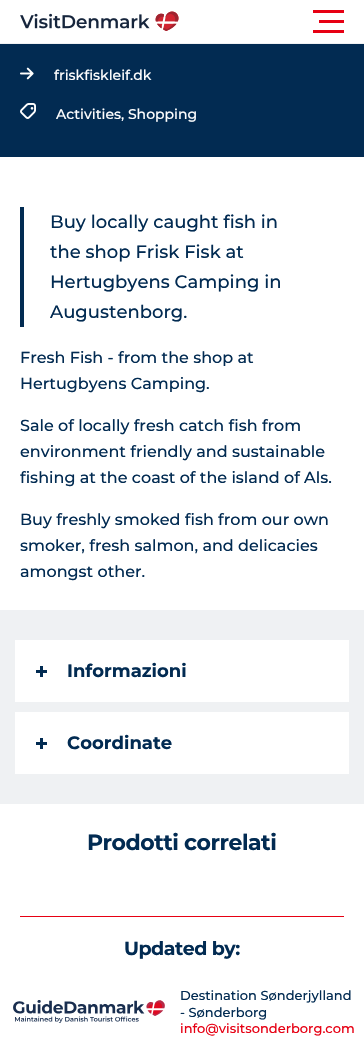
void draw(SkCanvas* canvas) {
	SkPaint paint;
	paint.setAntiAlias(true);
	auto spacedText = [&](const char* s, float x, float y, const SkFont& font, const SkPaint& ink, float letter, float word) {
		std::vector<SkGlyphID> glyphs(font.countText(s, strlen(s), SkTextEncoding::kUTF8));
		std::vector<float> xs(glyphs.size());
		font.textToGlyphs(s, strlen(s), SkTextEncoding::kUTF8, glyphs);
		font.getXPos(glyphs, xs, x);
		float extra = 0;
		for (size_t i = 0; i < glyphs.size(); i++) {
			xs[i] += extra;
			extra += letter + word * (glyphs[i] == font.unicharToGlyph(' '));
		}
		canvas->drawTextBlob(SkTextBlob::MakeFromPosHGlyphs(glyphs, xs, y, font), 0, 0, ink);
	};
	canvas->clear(0xffffffff);
	paint.setColor(0xfff0f1f3);
	canvas->drawRect(SkRect::MakeXYWH(0, 43, 364, 1), paint);
	canvas->drawImageRect(SkImages::DeferredFromEncodedData(SkData::MakeFromFileName("img1.png")), SkRect::MakeXYWH(20, 11, 159, 20), SkSamplingOptions());
	paint.setColor(0xffe70013);
	canvas->drawRect(SkRect::MakeXYWH(313, 10, 31, 3), paint);
	canvas->drawRect(SkRect::MakeXYWH(319, 20, 25, 3), paint);
	canvas->drawRect(SkRect::MakeXYWH(313, 30, 31, 3), paint);
	paint.setColor(0xff022b52);
	canvas->drawRect(SkRect::MakeXYWH(0, 44, 364, 113), paint);
	canvas->drawImageRect(SkImages::DeferredFromEncodedData(SkData::MakeFromFileName("img2.png")), SkRect::MakeXYWH(20, 67, 14, 13), SkSamplingOptions());
	SkFont f1(fontMgr->matchFamilyStyle("Montserrat", SkFontStyle(500, SkFontStyle::kNormal_Width, SkFontStyle::kUpright_Slant)), 14);
	f1.setSubpixel(true);
	paint.setColor(0xffffffff);
	canvas->drawString("friskfiskleif.dk", 54, 80, f1, paint);
	canvas->drawImageRect(SkImages::DeferredFromEncodedData(SkData::MakeFromFileName("img3.png")), SkRect::MakeXYWH(20, 103, 16, 16), SkSamplingOptions());
	canvas->drawString("Activities, Shopping", 56, 119, f1, paint);
	paint.setColor(0xff022b52);
	canvas->drawRect(SkRect::MakeXYWH(20, 207, 4, 120), paint);
	SkFont f2(fontMgr->matchFamilyStyle("Montserrat", SkFontStyle(500, SkFontStyle::kNormal_Width, SkFontStyle::kUpright_Slant)), 18);
	f2.setSubpixel(true);
	canvas->drawString("Buy locally caught fish in", 50, 228, f2, paint);
	canvas->drawString("the shop Frisk Fisk at", 50, 258, f2, paint);
	canvas->drawString("Hertugbyens Camping in", 50, 288, f2, paint);
	canvas->drawString("Augustenborg.", 50, 318, f2, paint);
	SkFont f3(fontMgr->matchFamilyStyle("Montserrat", SkFontStyle(500, SkFontStyle::kNormal_Width, SkFontStyle::kUpright_Slant)), 16);
	f3.setSubpixel(true);
	canvas->drawString("Fresh Fish - from the shop at", 20, 363, f3, paint);
	canvas->drawString("Hertugbyens Camping.", 20, 389, f3, paint);
	canvas->drawString("Sale of locally fresh catch fish from", 20, 431, f3, paint);
	canvas->drawString("environment friendly and sustainable", 20, 457, f3, paint);
	canvas->drawString("fishing at the coast of the island of Als.", 20, 483, f3, paint);
	canvas->drawString("Buy freshly smoked fish from our own", 20, 525, f3, paint);
	canvas->drawString("smoker, fresh salmon, and delicacies", 20, 551, f3, paint);
	canvas->drawString("amongst other.", 20, 577, f3, paint);
	paint.setColor(0xffeff1f3);
	canvas->drawRect(SkRect::MakeXYWH(0, 610, 364, 194), paint);
	paint.setColor(0xffffffff);
	canvas->drawRect(SkRect::MakeXYWH(15, 640, 334, 62), paint);
	paint.setColor(0xff022b52);
	canvas->drawRect(SkRect::MakeXYWH(36, 670, 11, 3), paint);
	canvas->drawRect(SkRect::MakeXYWH(40, 666, 3, 11), paint);
	SkFont f4(fontMgr->matchFamilyStyle("Montserrat", SkFontStyle::Bold()), 18);
	f4.setSubpixel(true);
	canvas->drawString("Informazioni", 67, 677, f4, paint);
	paint.setColor(0xffffffff);
	canvas->drawRect(SkRect::MakeXYWH(15, 712, 334, 62), paint);
	paint.setColor(0xff022b52);
	canvas->drawRect(SkRect::MakeXYWH(36, 742, 11, 3), paint);
	canvas->drawRect(SkRect::MakeXYWH(40, 738, 3, 11), paint);
	canvas->drawString("Coordinate", 67, 749, f4, paint);
	SkFont f5(fontMgr->matchFamilyStyle("Montserrat", SkFontStyle::Bold()), 22);
	f5.setSubpixel(true);
	spacedText("Prodotti correlati", 87, 850, f5, paint, -0.5, 0);
	paint.setColor(0xffe70013);
	canvas->drawRect(SkRect::MakeXYWH(20, 916, 324, 1), paint);
	SkFont f6(fontMgr->matchFamilyStyle("Montserrat", SkFontStyle::Bold()), 19);
	f6.setSubpixel(true);
	paint.setColor(0xff022b52);
	spacedText("Updated by:", 124, 955, f6, paint, -0.5, 0);
	canvas->drawImageRect(SkImages::DeferredFromEncodedData(SkData::MakeFromFileName("img4.png")), SkRect::MakeXYWH(13, 1000, 152, 23), SkSamplingOptions());
	SkFont f7(fontMgr->matchFamilyStyle("Montserrat", SkFontStyle(500, SkFontStyle::kNormal_Width, SkFontStyle::kUpright_Slant)), 13);
	f7.setSubpixel(true);
	canvas->drawString("Destination Sønderjylland", 180, 1000, f7, paint);
	canvas->drawString("- Sønderborg", 180, 1017, f7, paint);
	paint.setColor(0xffe70013);
	canvas->drawString("info@visitsonderborg.com", 180, 1033, f7, paint);
}
